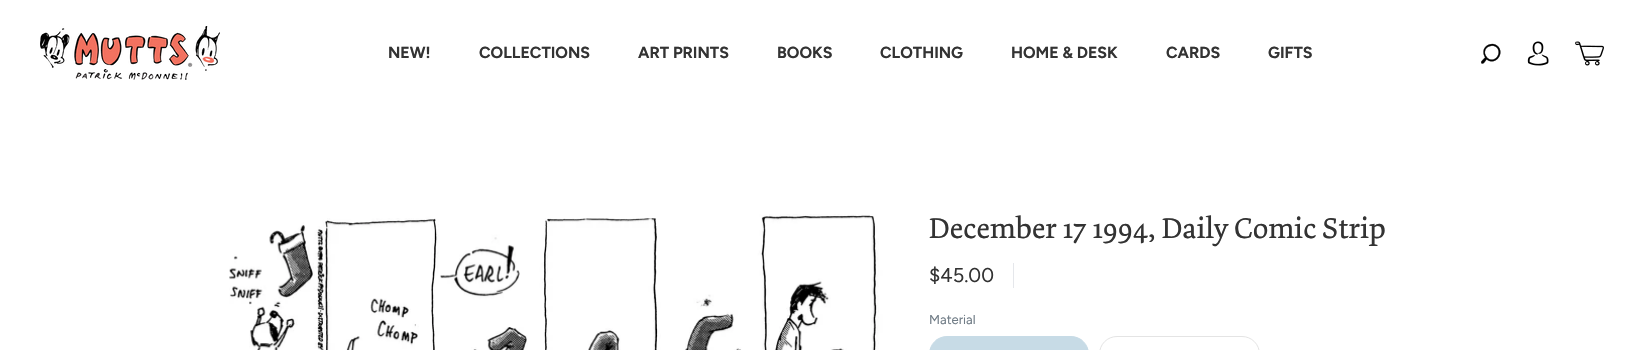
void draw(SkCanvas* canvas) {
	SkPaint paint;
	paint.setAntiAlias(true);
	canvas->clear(0xffffffff);
	canvas->drawImageRect(SkImages::DeferredFromEncodedData(SkData::MakeFromFileName("img1.png")), SkRect::MakeXYWH(40, 26, 180, 54), SkSamplingOptions());
	SkFont f1(fontMgr->matchFamilyStyle("Figtree", SkFontStyle::Bold()), 16);
	f1.setSubpixel(true);
	paint.setColor(0xff333333);
	canvas->drawString("NEW!", 388, 58, f1, paint);
	canvas->drawString("COLLECTIONS", 479, 58, f1, paint);
	canvas->drawString("ART PRINTS", 638, 58, f1, paint);
	canvas->drawString("BOOKS", 777, 58, f1, paint);
	canvas->drawString("CLOTHING", 880, 58, f1, paint);
	canvas->drawString("HOME & DESK", 1011, 58, f1, paint);
	canvas->drawString("CARDS", 1166, 58, f1, paint);
	canvas->drawString("GIFTS", 1268, 58, f1, paint);
	canvas->drawImageRect(SkImages::DeferredFromEncodedData(SkData::MakeFromFileName("img2.png")), SkRect::MakeXYWH(1481, 43, 20, 21), SkSamplingOptions());
	canvas->drawImageRect(SkImages::DeferredFromEncodedData(SkData::MakeFromFileName("img3.png")), SkRect::MakeXYWH(1527, 41, 22, 25), SkSamplingOptions());
	canvas->drawImageRect(SkImages::DeferredFromEncodedData(SkData::MakeFromFileName("img4.png")), SkRect::MakeXYWH(1575, 41, 29, 25), SkSamplingOptions());
	canvas->drawImageRect(SkImages::DeferredFromEncodedData(SkData::MakeFromFileName("img5.png")), SkRect::MakeXYWH(213, 210, 676, 140), SkSamplingOptions());
	SkFont f2(fontMgr->matchFamilyStyle("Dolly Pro", SkFontStyle::Normal()), 30);
	f2.setSubpixel(true);
	canvas->drawString("December 17 1994, Daily Comic Strip", 929, 238, f2, paint);
	paint.setColor(0xffe5e7eb);
	canvas->drawRect(SkRect::MakeXYWH(1013, 263, 1, 25), paint);
	SkFont f3(fontMgr->matchFamilyStyle("Figtree", SkFontStyle::Normal()), 20);
	f3.setSubpixel(true);
	paint.setColor(0xff333333);
	canvas->drawString("$45.00", 929, 282, f3, paint);
	SkFont f4(fontMgr->matchFamilyStyle("Figtree", SkFontStyle::Normal()), 13);
	f4.setSubpixel(true);
	paint.setColor(0xff717d87);
	canvas->drawString("Material", 929, 324, f4, paint);
	paint.setColor(0xffc7dbe6);
	canvas->drawRoundRect(SkRect::MakeXYWH(929.5, 336.5, 159, 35), 20, 20, paint);
	paint.setStroke(true);
	paint.setStrokeWidth(1);
	canvas->drawRoundRect(SkRect::MakeXYWH(929.5, 336.5, 159, 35), 20, 20, paint);
	paint.setColor(0xffe4e4e4);
	canvas->drawRoundRect(SkRect::MakeXYWH(1099.5, 336.5, 160, 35), 20, 20, paint);
}
